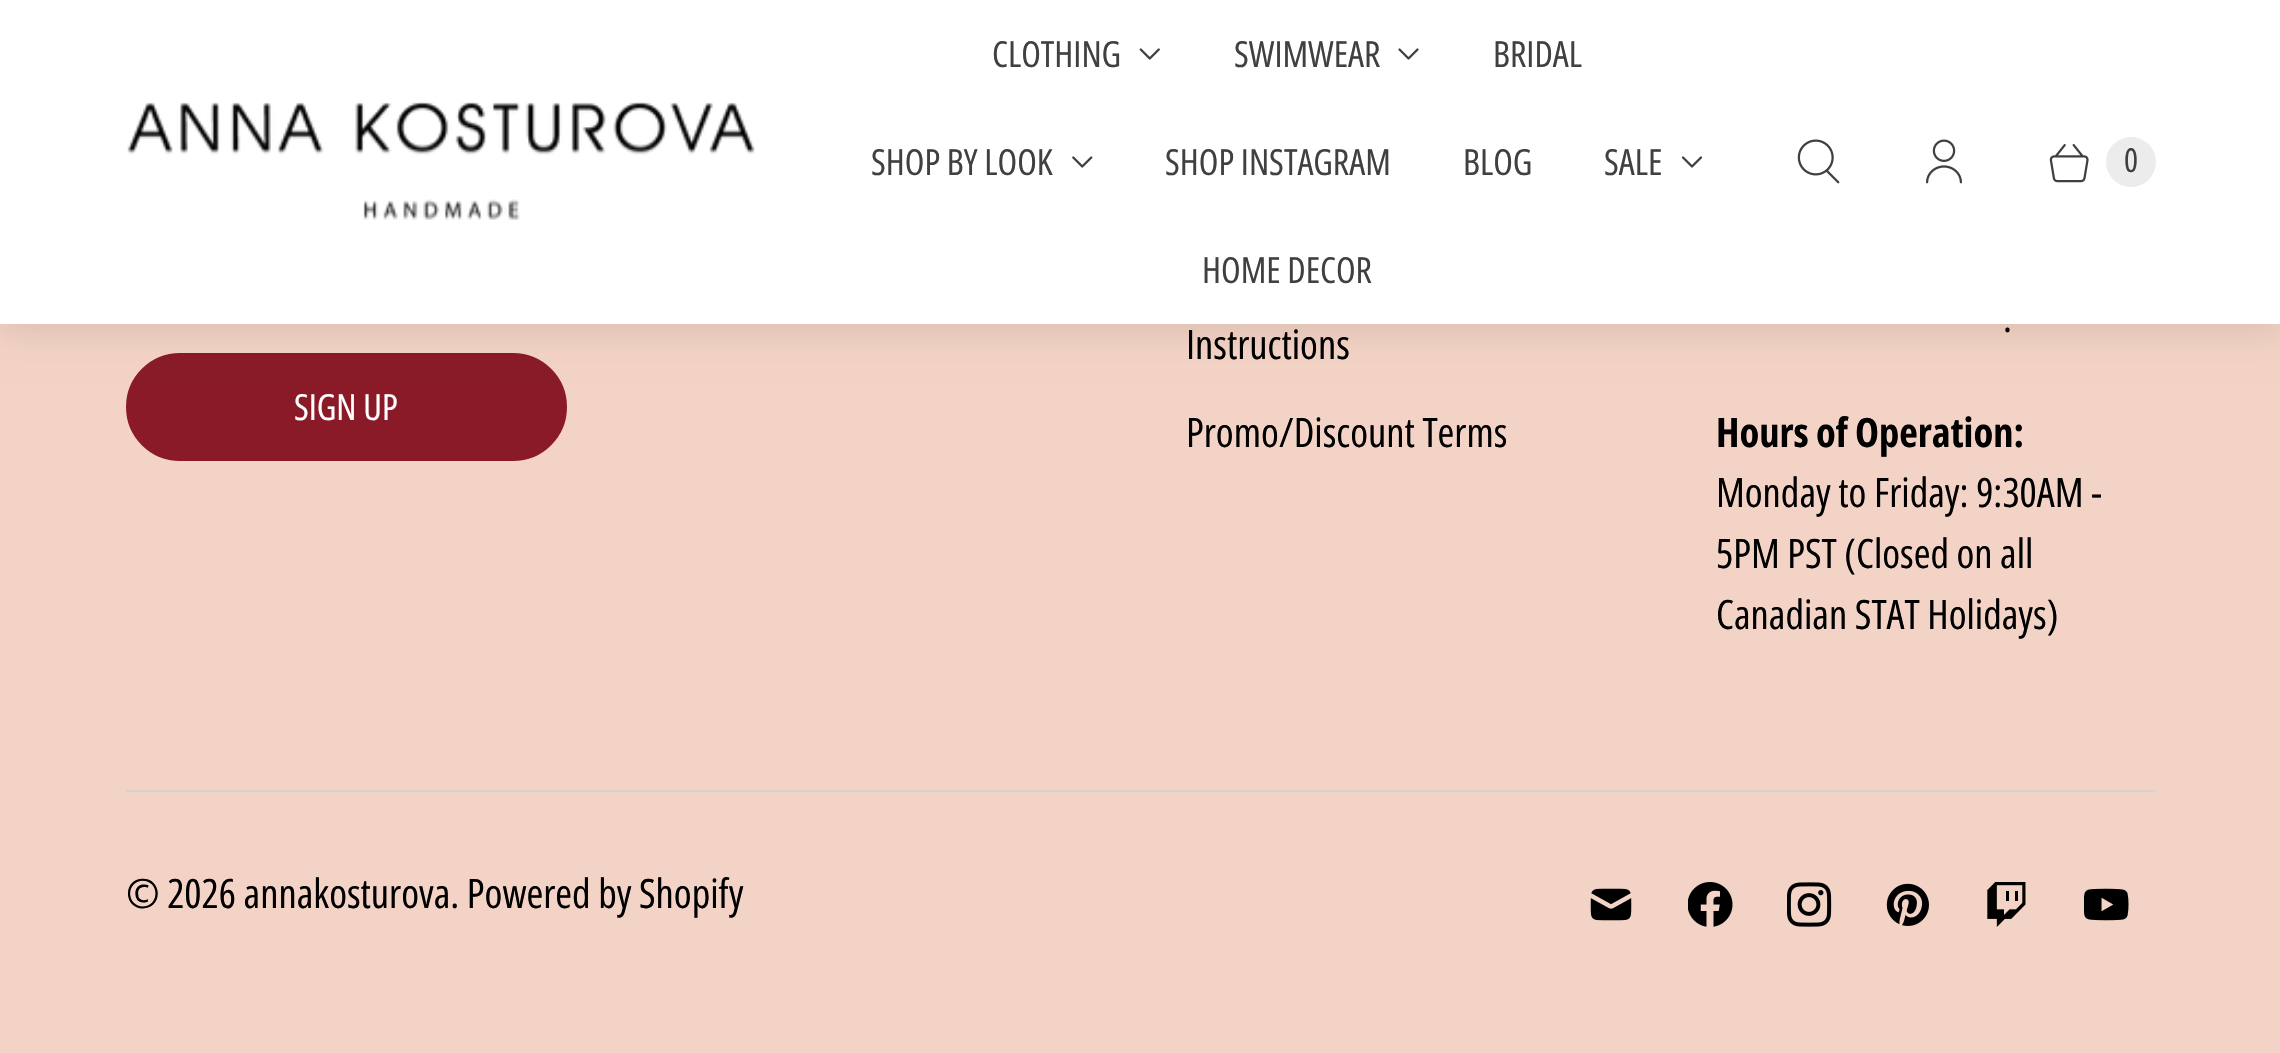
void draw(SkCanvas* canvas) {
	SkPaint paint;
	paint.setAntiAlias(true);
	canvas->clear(0xfff3d3c5);
	paint.setColor(0xff8a1a27);
	canvas->drawRoundRect(SkRect::MakeXYWH(127, 354, 439, 106), 53, 53, paint);
	paint.setStroke(true);
	paint.setStrokeWidth(2);
	canvas->drawRoundRect(SkRect::MakeXYWH(127, 354, 439, 106), 53, 53, paint);
	paint.setStroke(false);
	paint.setColor(0x1a000000);
	paint.setMaskFilter(SkMaskFilter::MakeBlur(kNormal_SkBlurStyle, 18));
	canvas->drawRect(SkRect::MakeXYWH(-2, -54, 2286, 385), paint);
	paint.setMaskFilter(nullptr);
	paint.setColor(0xffffffff);
	canvas->drawRect(SkRect::MakeXYWH(0, 0, 2280, 324), paint);
	canvas->drawImageRect(SkImages::DeferredFromEncodedData(SkData::MakeFromFileName("img1.png")), SkRect::MakeXYWH(127, 101, 628, 119), SkSamplingOptions());
	SkFont f1(fontMgr->matchFamilyStyle("Open Sans Condensed", SkFontStyle::Normal()), 36);
	f1.setSubpixel(true);
	paint.setColor(0xff404040);
	canvas->drawString("CLOTHING", 992, 67, f1, paint);
	canvas->drawImageRect(SkImages::DeferredFromEncodedData(SkData::MakeFromFileName("img2.png")), SkRect::MakeXYWH(1139, 48, 21, 12), SkSamplingOptions());
	canvas->drawString("SWIMWEAR", 1234, 67, f1, paint);
	canvas->drawImageRect(SkImages::DeferredFromEncodedData(SkData::MakeFromFileName("img3.png")), SkRect::MakeXYWH(1398, 48, 21, 12), SkSamplingOptions());
	canvas->drawString("BRIDAL", 1493, 67, f1, paint);
	canvas->drawString("SHOP BY LOOK", 871, 175, f1, paint);
	canvas->drawImageRect(SkImages::DeferredFromEncodedData(SkData::MakeFromFileName("img4.png")), SkRect::MakeXYWH(1072, 156, 21, 12), SkSamplingOptions());
	canvas->drawString("SHOP INSTAGRAM", 1165, 175, f1, paint);
	canvas->drawString("BLOG", 1463, 175, f1, paint);
	canvas->drawString("SALE", 1604, 175, f1, paint);
	canvas->drawImageRect(SkImages::DeferredFromEncodedData(SkData::MakeFromFileName("img5.png")), SkRect::MakeXYWH(1681, 156, 22, 12), SkSamplingOptions());
	canvas->drawString("HOME DECOR", 1202, 283, f1, paint);
	canvas->drawImageRect(SkImages::DeferredFromEncodedData(SkData::MakeFromFileName("img6.png")), SkRect::MakeXYWH(1797, 139, 43, 45), SkSamplingOptions());
	canvas->drawImageRect(SkImages::DeferredFromEncodedData(SkData::MakeFromFileName("img7.png")), SkRect::MakeXYWH(1926, 139, 36, 45), SkSamplingOptions());
	canvas->drawImageRect(SkImages::DeferredFromEncodedData(SkData::MakeFromFileName("img8.png")), SkRect::MakeXYWH(2049, 144, 40, 39), SkSamplingOptions());
	paint.setColor(0xffececec);
	canvas->drawCircle(2131, 162, 25, paint);
	SkFont f2(fontMgr->matchFamilyStyle("Open Sans Condensed", SkFontStyle::Normal()), 33);
	f2.setSubpixel(true);
	paint.setColor(0xff404040);
	canvas->drawString("0", 2124, 172, f2, paint);
	paint.setColor(0xffffffff);
	canvas->drawString("SIGN UP", 294, 420, f1, paint);
	SkFont f3(fontMgr->matchFamilyStyle("Open Sans Condensed", SkFontStyle::Normal()), 40.5);
	f3.setSubpixel(true);
	paint.setColor(0xff000000);
	canvas->drawString("Instructions", 1186, 359, f3, paint);
	canvas->drawString("Promo/Discount Terms", 1186, 447, f3, paint);
	canvas->drawString(".", 2003, 332, f3, paint);
	SkFont f4(fontMgr->matchFamilyStyle("Open Sans Condensed", SkFontStyle::Bold()), 40.5);
	f4.setSubpixel(true);
	canvas->drawString("Hours of Operation:", 1716, 447, f4, paint);
	canvas->drawString("Monday to Friday: 9:30AM -", 1716, 507, f3, paint);
	canvas->drawString("5PM PST (Closed on all", 1716, 568, f3, paint);
	canvas->drawString("Canadian STAT Holidays)", 1716, 629, f3, paint);
	paint.setColor(0xffd6d4cb);
	canvas->drawRect(SkRect::MakeXYWH(126, 790, 2030, 2), paint);
	paint.setColor(0xff000000);
	canvas->drawString("© 2026 annakosturova. Powered by Shopify", 126, 908, f3, paint);
	canvas->drawImageRect(SkImages::DeferredFromEncodedData(SkData::MakeFromFileName("img9.png")), SkRect::MakeXYWH(1590, 888, 42, 33), SkSamplingOptions());
	canvas->drawImageRect(SkImages::DeferredFromEncodedData(SkData::MakeFromFileName("img10.png")), SkRect::MakeXYWH(1688, 882, 45, 45), SkSamplingOptions());
	canvas->drawImageRect(SkImages::DeferredFromEncodedData(SkData::MakeFromFileName("img11.png")), SkRect::MakeXYWH(1787, 882, 45, 45), SkSamplingOptions());
	canvas->drawImageRect(SkImages::DeferredFromEncodedData(SkData::MakeFromFileName("img12.png")), SkRect::MakeXYWH(1886, 883, 43, 43), SkSamplingOptions());
	canvas->drawImageRect(SkImages::DeferredFromEncodedData(SkData::MakeFromFileName("img13.png")), SkRect::MakeXYWH(1987, 882, 39, 45), SkSamplingOptions());
	canvas->drawImageRect(SkImages::DeferredFromEncodedData(SkData::MakeFromFileName("img14.png")), SkRect::MakeXYWH(2084, 888, 45, 33), SkSamplingOptions());
}
